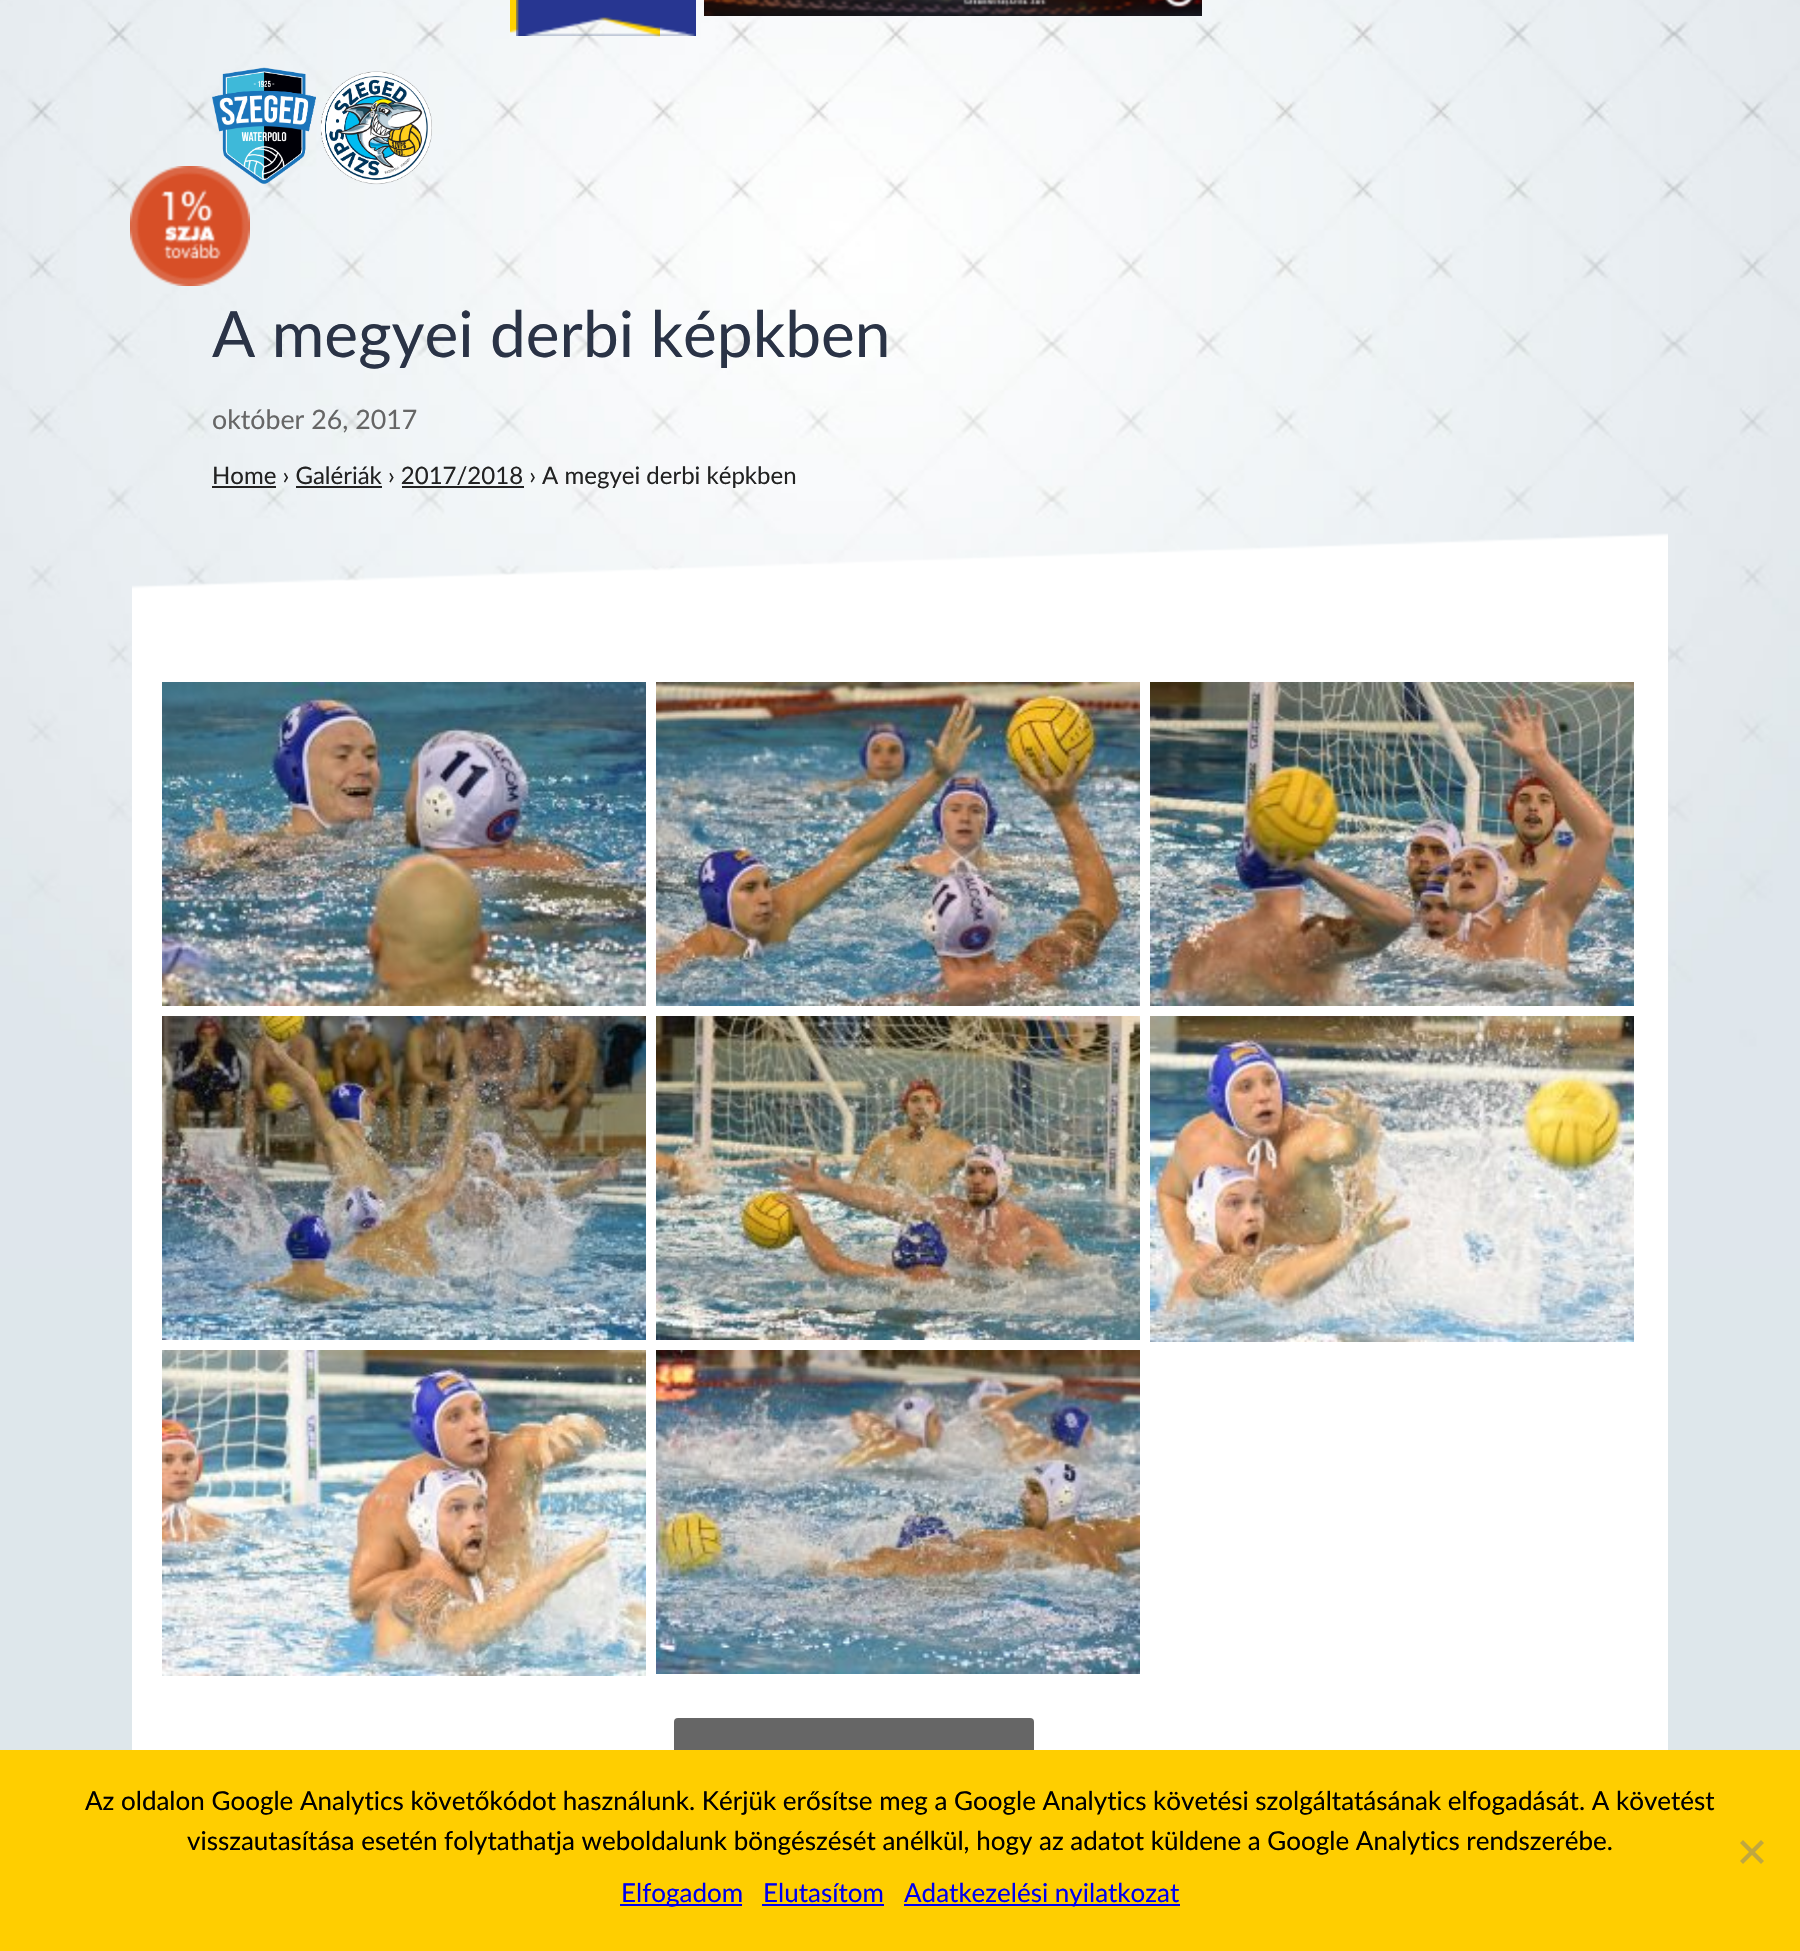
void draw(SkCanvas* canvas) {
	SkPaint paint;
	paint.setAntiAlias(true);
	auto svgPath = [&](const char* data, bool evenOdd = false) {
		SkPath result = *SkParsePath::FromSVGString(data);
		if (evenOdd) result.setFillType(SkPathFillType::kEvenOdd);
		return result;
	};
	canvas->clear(0xffdee7eb);
	canvas->drawImageRect(SkImages::DeferredFromEncodedData(SkData::MakeFromFileName("img1.png")), SkRect::MakeXYWH(0, 0, 1800, 1269), SkSamplingOptions());
	canvas->drawImageRect(SkImages::DeferredFromEncodedData(SkData::MakeFromFileName("img2.png")), SkRect::MakeXYWH(510, 0, 150, 37), SkSamplingOptions());
	canvas->drawImageRect(SkImages::DeferredFromEncodedData(SkData::MakeFromFileName("img3.png")), SkRect::MakeXYWH(516, 0, 180, 36), SkSamplingOptions());
	canvas->drawImageRect(SkImages::DeferredFromEncodedData(SkData::MakeFromFileName("img4.png")), SkRect::MakeXYWH(704, 0, 498, 16), SkSamplingOptions());
	canvas->drawImageRect(SkImages::DeferredFromEncodedData(SkData::MakeFromFileName("img5.png")), SkRect::MakeXYWH(212, 67, 220, 118), SkSamplingOptions());
	canvas->drawImageRect(SkImages::DeferredFromEncodedData(SkData::MakeFromFileName("img6.png")), SkRect::MakeXYWH(130, 166, 120, 120), SkSamplingOptions());
	SkFont f1(fontMgr->matchFamilyStyle("Lato", SkFontStyle::Normal()), 64);
	f1.setSubpixel(true);
	paint.setColor(0xff2a3346);
	canvas->drawString("A megyei derbi képkben", 212, 357, f1, paint);
	SkFont f2(fontMgr->matchFamilyStyle("Lato", SkFontStyle::Normal()), 26.75);
	f2.setSubpixel(true);
	paint.setColor(0xff666666);
	canvas->drawString("október 26, 2017", 212, 429, f2, paint);
	paint.setColor(0xff222222);
	canvas->drawRect(SkRect::MakeXYWH(212, 486, 64, 2), paint);
	SkFont f3(fontMgr->matchFamilyStyle("Lato", SkFontStyle::Normal()), 24);
	f3.setSubpixel(true);
	canvas->drawString("Home › Galériák › 2017/2018 › A megyei derbi képkben", 212, 484, f3, paint);
	canvas->drawRect(SkRect::MakeXYWH(296, 486, 86, 2), paint);
	canvas->drawRect(SkRect::MakeXYWH(402, 486, 122, 2), paint);
	canvas->drawImageRect(SkImages::DeferredFromEncodedData(SkData::MakeFromFileName("img7.png")), SkRect::MakeXYWH(132, 533, 1536, 89), SkSamplingOptions());
	paint.setColor(0xffffffff);
	canvas->drawRect(SkRect::MakeXYWH(132, 622, 1536, 1128), paint);
	canvas->drawImageRect(SkImages::DeferredFromEncodedData(SkData::MakeFromFileName("img8.png")), SkRect::MakeXYWH(162, 682, 484, 324), SkSamplingOptions());
	canvas->drawImageRect(SkImages::DeferredFromEncodedData(SkData::MakeFromFileName("img9.png")), SkRect::MakeXYWH(656, 682, 484, 324), SkSamplingOptions());
	canvas->drawImageRect(SkImages::DeferredFromEncodedData(SkData::MakeFromFileName("img10.png")), SkRect::MakeXYWH(1150, 682, 484, 324), SkSamplingOptions());
	canvas->drawImageRect(SkImages::DeferredFromEncodedData(SkData::MakeFromFileName("img11.png")), SkRect::MakeXYWH(162, 1016, 484, 324), SkSamplingOptions());
	canvas->drawImageRect(SkImages::DeferredFromEncodedData(SkData::MakeFromFileName("img12.png")), SkRect::MakeXYWH(656, 1016, 484, 324), SkSamplingOptions());
	canvas->drawImageRect(SkImages::DeferredFromEncodedData(SkData::MakeFromFileName("img13.png")), SkRect::MakeXYWH(1150, 1016, 484, 326), SkSamplingOptions());
	canvas->drawImageRect(SkImages::DeferredFromEncodedData(SkData::MakeFromFileName("img14.png")), SkRect::MakeXYWH(162, 1350, 484, 326), SkSamplingOptions());
	canvas->drawImageRect(SkImages::DeferredFromEncodedData(SkData::MakeFromFileName("img15.png")), SkRect::MakeXYWH(656, 1350, 484, 324), SkSamplingOptions());
	paint.setColor(0xff666666);
	canvas->drawRoundRect(SkRect::MakeXYWH(674, 1718, 360, 80), 4, 4, paint);
	paint.setColor(0xffffce00);
	canvas->drawRect(SkRect::MakeXYWH(0, 1750, 1800, 201), paint);
	SkFont f4(fontMgr->matchFamilyStyle("Lato", SkFontStyle::Normal()), 26);
	f4.setSubpixel(true);
	paint.setColor(0xff000000);
	canvas->drawString("Az oldalon Google Analytics követőkódot használunk. Kérjük erősítse meg a Google Analytics követési szolgáltatásának elfogadását. A követést", 85, 1810, f4, paint);
	canvas->drawString("visszautasítása esetén folytathatja weboldalunk böngészését anélkül, hogy az adatot küldene a Google Analytics rendszerébe.", 187, 1850, f4, paint);
	paint.setColor(0xffc0a740);
	canvas->drawPath(svgPath("M1761 1840L1764 1843L1743 1864L1740 1861Z"), paint);
	canvas->drawPath(svgPath("M1740 1843L1743 1840L1764 1861L1761 1864Z"), paint);
	paint.setColor(0xff0000ee);
	canvas->drawRect(SkRect::MakeXYWH(620, 1904, 122, 2), paint);
	canvas->drawString("Elfogadom", 621, 1902, f4, paint);
	canvas->drawString("Elutasítom", 763, 1902, f4, paint);
	canvas->drawRect(SkRect::MakeXYWH(762, 1904, 122, 2), paint);
	canvas->drawRect(SkRect::MakeXYWH(904, 1904, 276, 2), paint);
	canvas->drawString("Adatkezelési nyilatkozat", 904, 1902, f4, paint);
}
